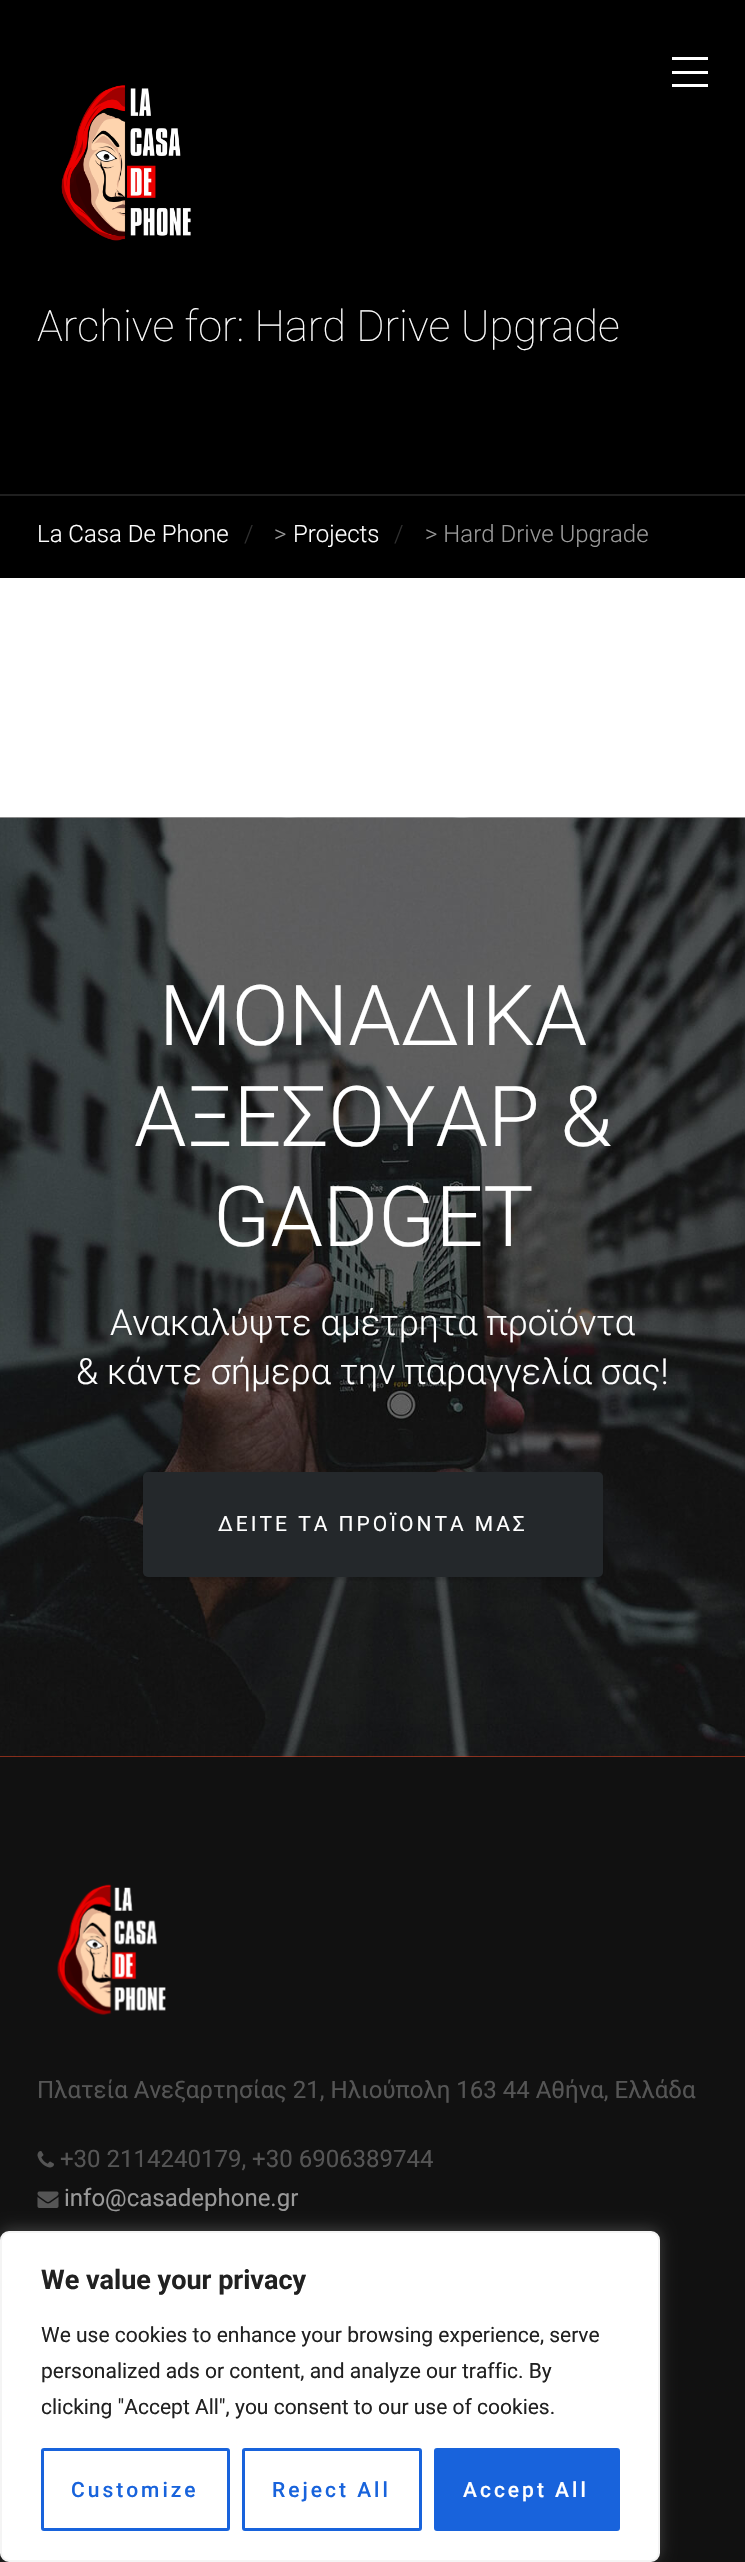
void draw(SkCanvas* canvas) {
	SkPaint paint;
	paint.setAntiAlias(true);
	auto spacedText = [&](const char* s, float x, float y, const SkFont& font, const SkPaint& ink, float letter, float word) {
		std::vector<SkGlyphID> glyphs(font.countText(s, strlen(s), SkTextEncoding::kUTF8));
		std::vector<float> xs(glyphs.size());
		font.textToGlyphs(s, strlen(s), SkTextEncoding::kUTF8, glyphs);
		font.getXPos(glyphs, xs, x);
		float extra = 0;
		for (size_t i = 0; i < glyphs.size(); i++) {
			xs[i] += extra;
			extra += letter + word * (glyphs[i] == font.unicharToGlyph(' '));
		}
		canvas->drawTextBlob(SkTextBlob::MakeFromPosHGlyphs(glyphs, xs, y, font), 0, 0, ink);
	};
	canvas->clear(0xffffffff);
	paint.setColor(0xff000000);
	canvas->drawRect(SkRect::MakeXYWH(0, 0, 745, 578), paint);
	paint.setColor(0xffffffff);
	canvas->drawRect(SkRect::MakeXYWH(672, 57, 36, 3), paint);
	canvas->drawRect(SkRect::MakeXYWH(672, 84, 36, 3), paint);
	canvas->drawRect(SkRect::MakeXYWH(672, 71, 36, 3), paint);
	canvas->drawImageRect(SkImages::DeferredFromEncodedData(SkData::MakeFromFileName("img1.png")), SkRect::MakeXYWH(61, 85, 130, 156), SkSamplingOptions());
	SkFont f1(fontMgr->matchFamilyStyle("Roboto", SkFontStyle(100, SkFontStyle::kNormal_Width, SkFontStyle::kUpright_Slant)), 43.25);
	f1.setSubpixel(true);
	canvas->drawString("Archive for: Hard Drive Upgrade", 37, 341, f1, paint);
	paint.setColor(0xff1f1f1f);
	canvas->drawRect(SkRect::MakeXYWH(0, 494, 745, 2), paint);
	SkFont f2(fontMgr->matchFamilyStyle("Roboto", SkFontStyle(300, SkFontStyle::kNormal_Width, SkFontStyle::kUpright_Slant)), 24);
	f2.setSubpixel(true);
	paint.setColor(0xffffffff);
	canvas->drawString("La Casa De Phone", 37, 542, f2, paint);
	paint.setColor(0xff2e2e2e);
	canvas->drawString("/", 244, 542, f2, paint);
	paint.setColor(0xff999999);
	canvas->drawString(">", 274, 542, f2, paint);
	paint.setColor(0xffffffff);
	canvas->drawString("Projects", 293, 542, f2, paint);
	paint.setColor(0xff2e2e2e);
	canvas->drawString("/", 394, 542, f2, paint);
	paint.setColor(0xff999999);
	canvas->drawString("> Hard Drive Upgrade", 425, 542, f2, paint);
	paint.setColor(0xfff5421c);
	canvas->drawRect(SkRect::MakeXYWH(0, 1756, 745, 1), paint);
	canvas->drawImageRect(SkImages::DeferredFromEncodedData(SkData::MakeFromFileName("img2.png")), SkRect::MakeXYWH(0, 817, 745, 940), SkSamplingOptions());
	SkFont f3(fontMgr->matchFamilyStyle("Roboto", SkFontStyle(300, SkFontStyle::kNormal_Width, SkFontStyle::kUpright_Slant)), 84);
	f3.setSubpixel(true);
	paint.setColor(0xffffffff);
	canvas->drawString("ΜΟΝΑΔΙΚΑ", 159, 1045, f3, paint);
	canvas->drawString("ΑΞΕΣΟΥΑΡ &", 134, 1146, f3, paint);
	canvas->drawString("GADGET", 213, 1246, f3, paint);
	SkFont f4(fontMgr->matchFamilyStyle("Roboto", SkFontStyle(300, SkFontStyle::kNormal_Width, SkFontStyle::kUpright_Slant)), 36);
	f4.setSubpixel(true);
	canvas->drawString("Ανακαλύψτε αμέτρητα προϊόντα", 110, 1335, f4, paint);
	canvas->drawString("& κάντε σήμερα την παραγγελία σας!", 76, 1384, f4, paint);
	paint.setColor(0x26000000);
	paint.setMaskFilter(SkMaskFilter::MakeBlur(kNormal_SkBlurStyle, 1.5));
	canvas->drawRoundRect(SkRect::MakeXYWH(143, 1475, 460, 105), 5, 5, paint);
	paint.setMaskFilter(nullptr);
	paint.setColor(0xff24282b);
	canvas->drawRoundRect(SkRect::MakeXYWH(143, 1472, 460, 105), 5, 5, paint);
	SkFont f5(fontMgr->matchFamilyStyle("Roboto", SkFontStyle::Normal()), 21);
	f5.setSubpixel(true);
	paint.setColor(0xffffffff);
	spacedText("ΔΕΙΤΕ ΤΑ ΠΡΟΪΟΝΤΑ ΜΑΣ", 218, 1531, f5, paint, 3, 0);
	paint.setColor(0xff111111);
	canvas->drawRect(SkRect::MakeXYWH(0, 1757, 745, 805), paint);
	canvas->drawImageRect(SkImages::DeferredFromEncodedData(SkData::MakeFromFileName("img3.png")), SkRect::MakeXYWH(57, 1884, 109, 131), SkSamplingOptions());
	SkFont f6(fontMgr->matchFamilyStyle("Roboto", SkFontStyle::Normal()), 24);
	f6.setSubpixel(true);
	paint.setColor(0xff555555);
	canvas->drawString("Πλατεία Ανεξαρτησίας 21, Ηλιούπολη 163 44 Αθήνα, Ελλάδα", 37, 2098, f6, paint);
	canvas->drawImageRect(SkImages::DeferredFromEncodedData(SkData::MakeFromFileName("img4.png")), SkRect::MakeXYWH(37, 2151, 17, 17), SkSamplingOptions());
	canvas->drawString("+30 2114240179, +30 6906389744", 60, 2167, f6, paint);
	canvas->drawImageRect(SkImages::DeferredFromEncodedData(SkData::MakeFromFileName("img5.png")), SkRect::MakeXYWH(37, 2191, 22, 17), SkSamplingOptions());
	paint.setColor(0xff999999);
	canvas->drawString("info@casadephone.gr", 64, 2206, f6, paint);
	paint.setColor(0x4dacabab);
	paint.setMaskFilter(SkMaskFilter::MakeBlur(kNormal_SkBlurStyle, 7.5));
	canvas->drawRoundRect(SkRect::MakeXYWH(0, 2229, 660, 332), 9, 9, paint);
	paint.setMaskFilter(nullptr);
	paint.setColor(0xffffffff);
	canvas->drawRoundRect(SkRect::MakeXYWH(1, 2232, 658, 329), 8, 8, paint);
	paint.setStroke(true);
	paint.setStrokeWidth(2);
	paint.setColor(0xfff4f4f4);
	canvas->drawRoundRect(SkRect::MakeXYWH(1, 2232, 658, 329), 8, 8, paint);
	SkFont f7(fontMgr->matchFamilyStyle("Roboto", SkFontStyle::Bold()), 27);
	f7.setSubpixel(true);
	paint.setStroke(false);
	paint.setColor(0xff212121);
	canvas->drawString("We value your privacy", 41, 2289, f7, paint);
	canvas->drawString("We use cookies to enhance your browsing experience, serve", 41, 2342, f5, paint);
	canvas->drawString("personalized ads or content, and analyze our traffic. By", 41, 2378, f5, paint);
	canvas->drawString("clicking \"Accept All\", you consent to our use of cookies.", 41, 2414, f5, paint);
	paint.setStroke(true);
	paint.setStrokeWidth(3);
	paint.setColor(0xff1863dc);
	canvas->drawRoundRect(SkRect::MakeXYWH(42.5, 2449.5, 186, 80), 1.5, 1.5, paint);
	SkFont f8(fontMgr->matchFamilyStyle("Roboto", SkFontStyle(500, SkFontStyle::kNormal_Width, SkFontStyle::kUpright_Slant)), 21);
	f8.setSubpixel(true);
	paint.setStroke(false);
	spacedText("Customize", 71, 2497, f8, paint, 3, 0);
	paint.setStroke(true);
	canvas->drawRoundRect(SkRect::MakeXYWH(243.5, 2449.5, 177, 80), 1.5, 1.5, paint);
	paint.setStroke(false);
	spacedText("Reject All", 272, 2497, f8, paint, 3, 0);
	canvas->drawRoundRect(SkRect::MakeXYWH(435.5, 2449.5, 183, 80), 1.5, 1.5, paint);
	paint.setStroke(true);
	canvas->drawRoundRect(SkRect::MakeXYWH(435.5, 2449.5, 183, 80), 1.5, 1.5, paint);
	paint.setStroke(false);
	paint.setColor(0xffffffff);
	spacedText("Accept All", 463, 2497, f8, paint, 3, 0);
}
